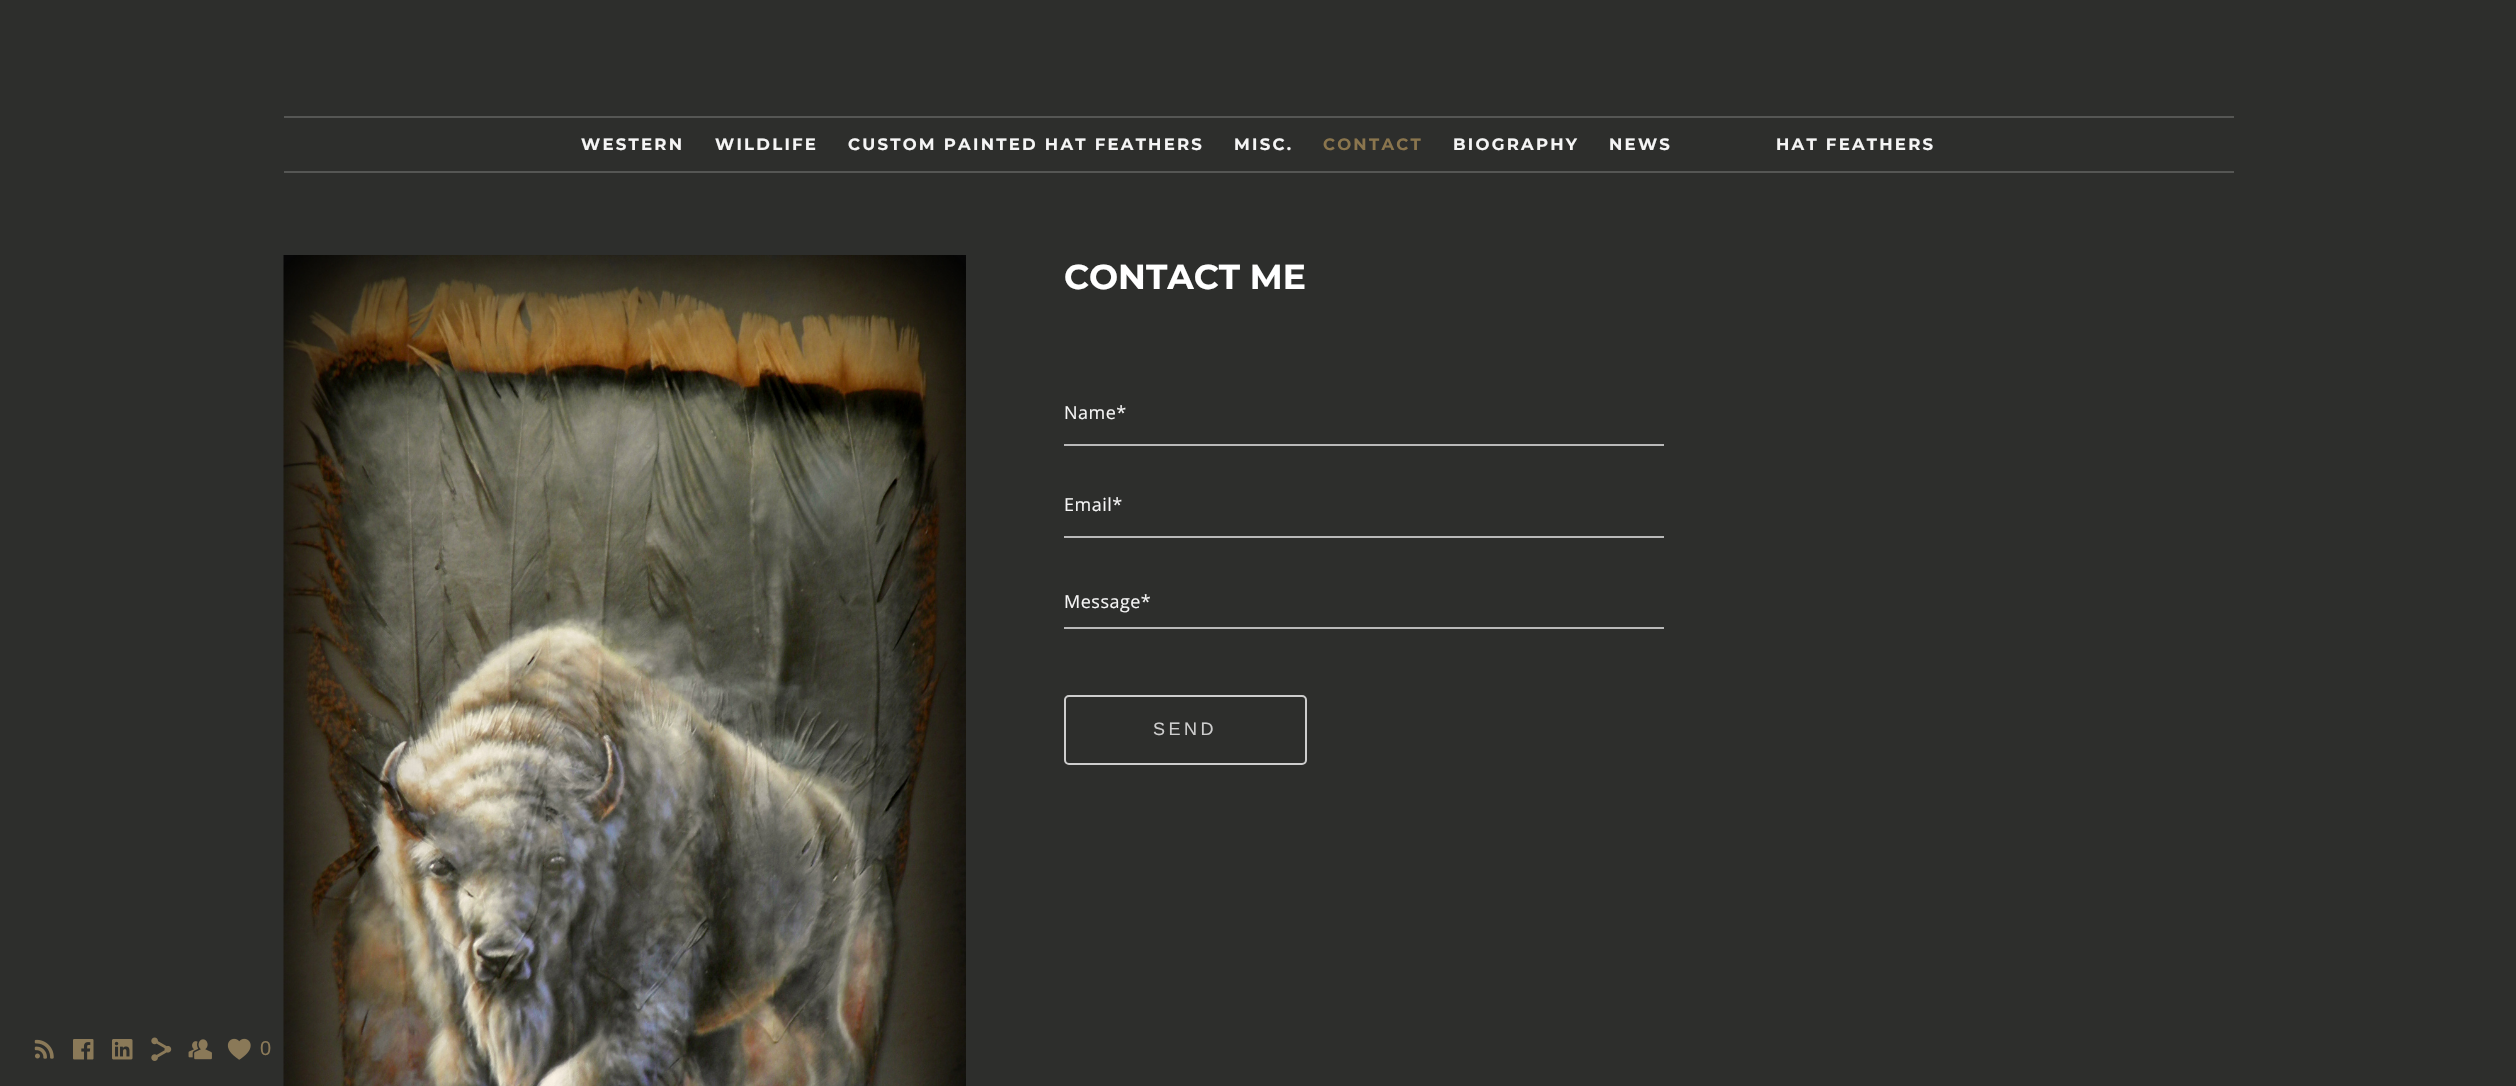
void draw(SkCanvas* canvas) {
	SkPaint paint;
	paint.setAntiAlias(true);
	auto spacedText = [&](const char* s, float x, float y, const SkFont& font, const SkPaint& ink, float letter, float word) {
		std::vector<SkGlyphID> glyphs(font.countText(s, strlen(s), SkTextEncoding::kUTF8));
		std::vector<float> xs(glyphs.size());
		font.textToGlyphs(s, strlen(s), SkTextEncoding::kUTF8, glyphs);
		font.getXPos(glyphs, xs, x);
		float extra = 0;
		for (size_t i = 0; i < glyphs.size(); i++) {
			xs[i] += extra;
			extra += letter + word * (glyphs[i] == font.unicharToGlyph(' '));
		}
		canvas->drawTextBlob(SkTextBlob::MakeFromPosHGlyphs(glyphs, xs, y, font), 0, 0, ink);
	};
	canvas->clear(0xff2d2e2c);
	paint.setColor(0xff555654);
	canvas->drawRect(SkRect::MakeXYWH(284, 116, 1950, 2), paint);
	canvas->drawRect(SkRect::MakeXYWH(284, 171, 1950, 2), paint);
	SkFont f1(fontMgr->matchFamilyStyle("Montserrat", SkFontStyle::Bold()), 16.5);
	f1.setSubpixel(true);
	paint.setColor(0xfff5f5f5);
	spacedText("WESTERN", 581, 150, f1, paint, 2.25, 0);
	spacedText("WILDLIFE", 715, 150, f1, paint, 2.25, 0);
	spacedText("CUSTOM PAINTED HAT FEATHERS", 848, 150, f1, paint, 2.25, 0);
	spacedText("MISC.", 1234, 150, f1, paint, 2.25, 0);
	paint.setColor(0xff8a754d);
	spacedText("CONTACT", 1323, 150, f1, paint, 2.25, 0);
	paint.setColor(0xfff5f5f5);
	spacedText("BIOGRAPHY", 1453, 150, f1, paint, 2.25, 0);
	spacedText("NEWS", 1609, 150, f1, paint, 2.25, 0);
	spacedText("HAT FEATHERS", 1776, 150, f1, paint, 2.25, 0);
	canvas->drawImageRect(SkImages::DeferredFromEncodedData(SkData::MakeFromFileName("img1.png")), SkRect::MakeXYWH(283, 255, 683, 831), SkSamplingOptions());
	SkFont f2(fontMgr->matchFamilyStyle("Montserrat", SkFontStyle::Bold()), 34.5);
	f2.setSubpixel(true);
	paint.setColor(0xffffffff);
	canvas->drawString("CONTACT ME", 1064, 289, f2, paint);
	SkFont f3(fontMgr->matchFamilyStyle("Open Sans", SkFontStyle::Normal()), 18);
	f3.setSubpixel(true);
	paint.setColor(0xfff5f5f5);
	spacedText("Name*", 1064, 419, f3, paint, 0.5, 0);
	paint.setColor(0xffb9b9b9);
	canvas->drawRect(SkRect::MakeXYWH(1064, 444, 600, 2), paint);
	paint.setColor(0xfff5f5f5);
	spacedText("Email*", 1064, 511, f3, paint, 0.5, 0);
	paint.setColor(0xffb9b9b9);
	canvas->drawRect(SkRect::MakeXYWH(1064, 536, 600, 2), paint);
	paint.setColor(0xfff5f5f5);
	spacedText("Message*", 1064, 608, f3, paint, 0.5, 0);
	paint.setColor(0xffb9b9b9);
	canvas->drawRect(SkRect::MakeXYWH(1064, 627, 600, 2), paint);
	paint.setStroke(true);
	paint.setStrokeWidth(2);
	paint.setColor(0xffcdcdcd);
	canvas->drawRoundRect(SkRect::MakeXYWH(1065, 696, 241, 68), 4, 4, paint);
	SkFont f4(fontMgr->matchFamilyStyle("Liberation Sans", SkFontStyle::Normal()), 18);
	f4.setSubpixel(true);
	paint.setStroke(false);
	spacedText("SEND", 1153, 735, f4, paint, 3.5, 0);
	canvas->drawImageRect(SkImages::DeferredFromEncodedData(SkData::MakeFromFileName("img2.png")), SkRect::MakeXYWH(34, 1039, 20, 20), SkSamplingOptions());
	canvas->drawImageRect(SkImages::DeferredFromEncodedData(SkData::MakeFromFileName("img3.png")), SkRect::MakeXYWH(73, 1039, 21, 21), SkSamplingOptions());
	canvas->drawImageRect(SkImages::DeferredFromEncodedData(SkData::MakeFromFileName("img4.png")), SkRect::MakeXYWH(112, 1039, 21, 21), SkSamplingOptions());
	canvas->drawImageRect(SkImages::DeferredFromEncodedData(SkData::MakeFromFileName("img5.png")), SkRect::MakeXYWH(151, 1037, 21, 24), SkSamplingOptions());
	canvas->drawImageRect(SkImages::DeferredFromEncodedData(SkData::MakeFromFileName("img6.png")), SkRect::MakeXYWH(188, 1039, 24, 21), SkSamplingOptions());
	canvas->drawImageRect(SkImages::DeferredFromEncodedData(SkData::MakeFromFileName("img7.png")), SkRect::MakeXYWH(227, 1038, 24, 22), SkSamplingOptions());
	SkFont f5(fontMgr->matchFamilyStyle("Liberation Sans", SkFontStyle::Normal()), 20);
	f5.setSubpixel(true);
	paint.setColor(0xff8a7958);
	canvas->drawString("0", 260, 1055, f5, paint);
}
